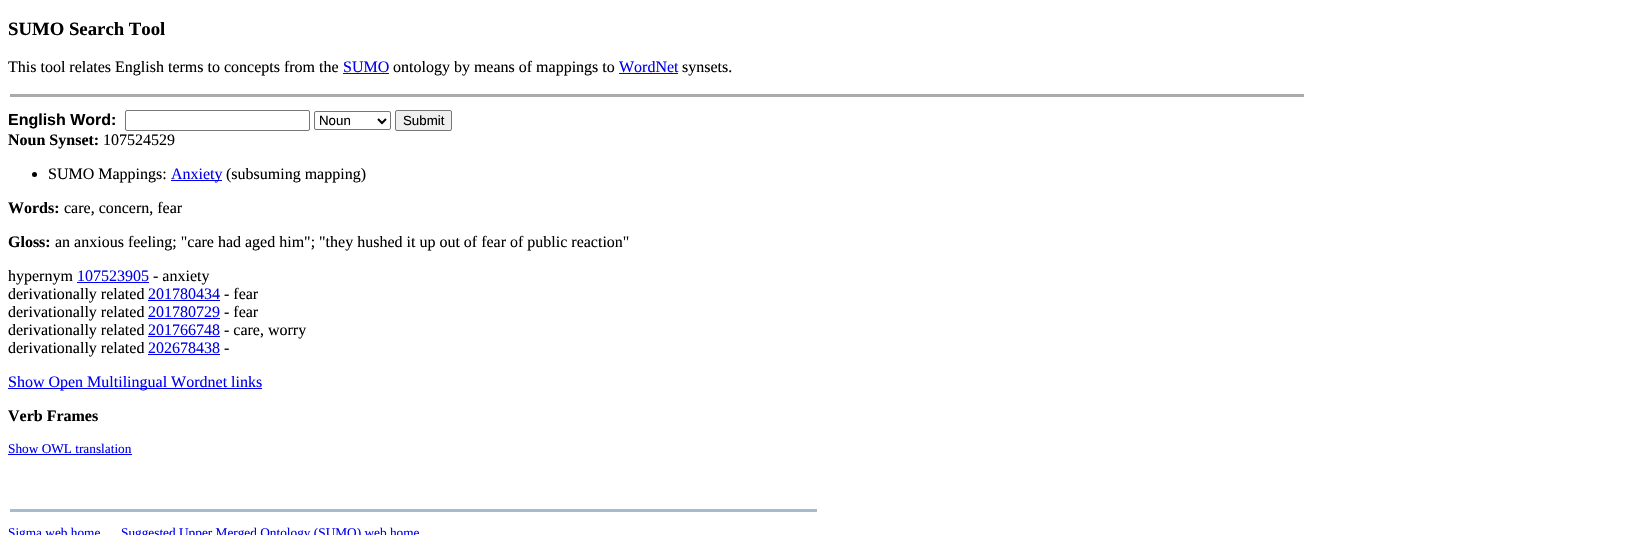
void draw(SkCanvas* canvas) {
	SkPaint paint;
	paint.setAntiAlias(true);
	auto svgPath = [&](const char* data, bool evenOdd = false) {
		SkPath result = *SkParsePath::FromSVGString(data);
		if (evenOdd) result.setFillType(SkPathFillType::kEvenOdd);
		return result;
	};
	canvas->clear(0xffffffff);
	SkFont f1(fontMgr->matchFamilyStyle("Liberation Serif", SkFontStyle::Bold()), 18.75);
	f1.setSubpixel(true);
	paint.setColor(0xff000000);
	canvas->drawString("SUMO Search Tool", 8, 35, f1, paint);
	SkFont f2(fontMgr->matchFamilyStyle("Liberation Serif", SkFontStyle::Normal()), 16);
	f2.setSubpixel(true);
	canvas->drawString("This tool relates English terms to concepts from the", 8, 72, f2, paint);
	paint.setColor(0xff0000ee);
	canvas->drawString("SUMO", 343, 72, f2, paint);
	canvas->drawRect(SkRect::MakeXYWH(343, 73, 46, 1), paint);
	paint.setColor(0xff000000);
	canvas->drawString("ontology by means of mappings to", 393, 72, f2, paint);
	paint.setColor(0xff0000ee);
	canvas->drawString("WordNet", 619, 72, f2, paint);
	canvas->drawRect(SkRect::MakeXYWH(619, 73, 59, 1), paint);
	paint.setColor(0xff000000);
	canvas->drawString("synsets.", 682, 72, f2, paint);
	paint.setColor(0xffaaaaaa);
	canvas->drawRect(SkRect::MakeXYWH(10, 94, 1294, 3), paint);
	SkFont f3(fontMgr->matchFamilyStyle("Liberation Sans", SkFontStyle::Bold()), 16);
	f3.setSubpixel(true);
	paint.setColor(0xff000000);
	canvas->drawString("English Word:", 8, 125, f3, paint);
	paint.setStroke(true);
	paint.setStrokeWidth(1);
	paint.setColor(0xff767676);
	canvas->drawRoundRect(SkRect::MakeXYWH(125.5, 110.5, 184, 20), 1.5, 1.5, paint);
	canvas->drawRoundRect(SkRect::MakeXYWH(314.5, 111.5, 76, 18), 1.5, 1.5, paint);
	paint.setStrokeWidth(2);
	paint.setColor(0xff000000);
	canvas->drawPath(svgPath("M378 119L382 123L386 119"), paint);
	SkFont f4(fontMgr->matchFamilyStyle("Liberation Sans", SkFontStyle::Normal()), 13.3);
	f4.setSubpixel(true);
	paint.setStroke(false);
	canvas->drawString("Noun", 319, 125, f4, paint);
	paint.setColor(0xffefefef);
	canvas->drawRoundRect(SkRect::MakeXYWH(395.5, 110.5, 56, 20), 1.5, 1.5, paint);
	paint.setStroke(true);
	paint.setStrokeWidth(1);
	paint.setColor(0xff767676);
	canvas->drawRoundRect(SkRect::MakeXYWH(395.5, 110.5, 56, 20), 1.5, 1.5, paint);
	paint.setStroke(false);
	paint.setColor(0xff000000);
	canvas->drawString("Submit", 403, 125, f4, paint);
	SkFont f5(fontMgr->matchFamilyStyle("Liberation Serif", SkFontStyle::Bold()), 16);
	f5.setSubpixel(true);
	canvas->drawString("Noun Synset:", 8, 145, f5, paint);
	canvas->drawString("107524529", 103, 145, f2, paint);
	canvas->drawCircle(34.5, 174.5, 2.5, paint);
	canvas->drawString("SUMO Mappings:", 48, 179, f2, paint);
	paint.setColor(0xff0000ee);
	canvas->drawRect(SkRect::MakeXYWH(171, 180, 51, 1), paint);
	canvas->drawString("Anxiety", 171, 179, f2, paint);
	paint.setColor(0xff000000);
	canvas->drawString("(subsuming mapping)", 226, 179, f2, paint);
	canvas->drawString("Words:", 8, 213, f5, paint);
	canvas->drawString("care, concern, fear", 64, 213, f2, paint);
	canvas->drawString("Gloss:", 8, 247, f5, paint);
	canvas->drawString("an anxious feeling; \"care had aged him\"; \"they hushed it up out of fear of public reaction\"", 55, 247, f2, paint);
	canvas->drawString("hypernym", 8, 281, f2, paint);
	paint.setColor(0xff0000ee);
	canvas->drawString("107523905", 77, 281, f2, paint);
	canvas->drawRect(SkRect::MakeXYWH(77, 282, 72, 1), paint);
	paint.setColor(0xff000000);
	canvas->drawString("- anxiety", 153, 281, f2, paint);
	canvas->drawString("derivationally related", 8, 299, f2, paint);
	paint.setColor(0xff0000ee);
	canvas->drawString("201780434", 148, 299, f2, paint);
	canvas->drawRect(SkRect::MakeXYWH(148, 300, 72, 1), paint);
	paint.setColor(0xff000000);
	canvas->drawString("- fear", 224, 299, f2, paint);
	canvas->drawString("derivationally related", 8, 317, f2, paint);
	paint.setColor(0xff0000ee);
	canvas->drawString("201780729", 148, 317, f2, paint);
	canvas->drawRect(SkRect::MakeXYWH(148, 318, 72, 1), paint);
	paint.setColor(0xff000000);
	canvas->drawString("- fear", 224, 317, f2, paint);
	canvas->drawString("derivationally related", 8, 335, f2, paint);
	paint.setColor(0xff0000ee);
	canvas->drawString("201766748", 148, 335, f2, paint);
	canvas->drawRect(SkRect::MakeXYWH(148, 336, 72, 1), paint);
	paint.setColor(0xff000000);
	canvas->drawString("- care, worry", 224, 335, f2, paint);
	canvas->drawString("derivationally related", 8, 353, f2, paint);
	paint.setColor(0xff0000ee);
	canvas->drawString("202678438", 148, 353, f2, paint);
	canvas->drawRect(SkRect::MakeXYWH(148, 354, 72, 1), paint);
	paint.setColor(0xff000000);
	canvas->drawString("-", 224, 353, f2, paint);
	paint.setColor(0xff0000ee);
	canvas->drawRect(SkRect::MakeXYWH(8, 388, 254, 1), paint);
	canvas->drawString("Show Open Multilingual Wordnet links", 8, 387, f2, paint);
	paint.setColor(0xff000000);
	canvas->drawString("Verb Frames", 8, 421, f5, paint);
	SkFont f6(fontMgr->matchFamilyStyle("Liberation Serif", SkFontStyle::Normal()), 13.3);
	f6.setSubpixel(true);
	paint.setColor(0xff0000ee);
	canvas->drawString("Show OWL translation", 8, 453, f6, paint);
	canvas->drawRect(SkRect::MakeXYWH(8, 454, 124, 1), paint);
	paint.setColor(0xffa8bacf);
	canvas->drawRect(SkRect::MakeXYWH(10, 509, 807, 3), paint);
	paint.setColor(0xff0000ee);
	canvas->drawString("Sigma web home", 8, 537, f6, paint);
	canvas->drawString("Suggested Upper Merged Ontology (SUMO) web home", 121, 537, f6, paint);
}
